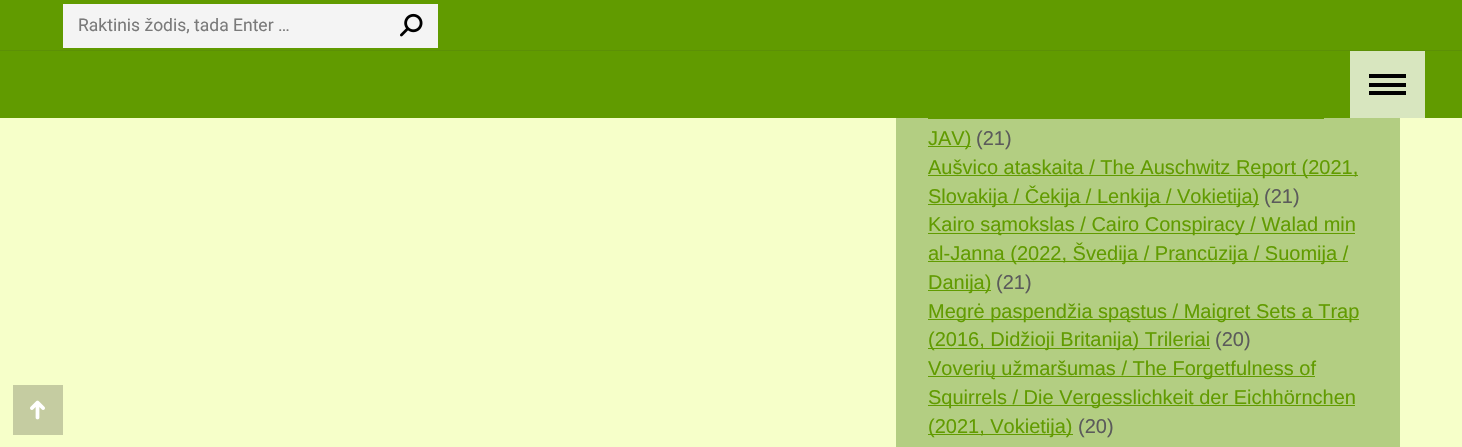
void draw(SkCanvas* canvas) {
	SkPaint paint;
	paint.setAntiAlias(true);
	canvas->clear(0xfff6ffc9);
	paint.setColor(0xff619b00);
	canvas->drawRect(SkRect::MakeXYWH(0, 0, 1462, 118), paint);
	paint.setColor(0xfff4f4f4);
	canvas->drawRect(SkRect::MakeXYWH(63, 4, 375, 44), paint);
	SkFont f1(fontMgr->matchFamilyStyle("Roboto", SkFontStyle::Normal()), 17.5);
	f1.setSubpixel(true);
	paint.setColor(0xff7a7a7a);
	canvas->drawString("Raktinis žodis, tada Enter …", 78, 31, f1, paint);
	canvas->drawImageRect(SkImages::DeferredFromEncodedData(SkData::MakeFromFileName("img1.png")), SkRect::MakeXYWH(400, 13, 23, 24), SkSamplingOptions());
	paint.setColor(0xff5c9006);
	canvas->drawRect(SkRect::MakeXYWH(0, 50, 1462, 1), paint);
	paint.setColor(0xffd8e6bf);
	canvas->drawRect(SkRect::MakeXYWH(1350, 51, 75, 67), paint);
	paint.setColor(0xff000000);
	canvas->drawRect(SkRect::MakeXYWH(1369, 74, 37, 4), paint);
	canvas->drawRect(SkRect::MakeXYWH(1369, 83, 37, 4), paint);
	canvas->drawRect(SkRect::MakeXYWH(1369, 91, 37, 4), paint);
	paint.setColor(0xffc5cca1);
	canvas->drawRect(SkRect::MakeXYWH(13, 385, 50, 50), paint);
	canvas->drawImageRect(SkImages::DeferredFromEncodedData(SkData::MakeFromFileName("img2.png")), SkRect::MakeXYWH(30, 400, 15, 20), SkSamplingOptions());
	paint.setColor(0xffb3ce82);
	canvas->drawRect(SkRect::MakeXYWH(896, 118, 504, 329), paint);
	paint.setColor(0xff619b00);
	canvas->drawRect(SkRect::MakeXYWH(928, 146, 43, 1), paint);
	SkFont f2(fontMgr->matchFamilyStyle("Liberation Sans", SkFontStyle::Normal()), 20);
	f2.setSubpixel(true);
	canvas->drawString("JAV)", 928, 145, f2, paint);
	canvas->drawRect(SkRect::MakeXYWH(928, 118, 396, 1), paint);
	paint.setColor(0xff5b5b5b);
	canvas->drawString("(21)", 976, 145, f2, paint);
	paint.setColor(0xff619b00);
	canvas->drawRect(SkRect::MakeXYWH(928, 175, 430, 1), paint);
	canvas->drawString("Aušvico ataskaita / The Auschwitz Report (2021,", 928, 174, f2, paint);
	canvas->drawRect(SkRect::MakeXYWH(928, 204, 331, 1), paint);
	canvas->drawString("Slovakija / Čekija / Lenkija / Vokietija)", 928, 203, f2, paint);
	paint.setColor(0xff5b5b5b);
	canvas->drawString("(21)", 1264, 203, f2, paint);
	paint.setColor(0xff619b00);
	canvas->drawRect(SkRect::MakeXYWH(928, 233, 427, 1), paint);
	canvas->drawString("Kairo sąmokslas / Cairo Conspiracy / Walad min", 928, 231, f2, paint);
	canvas->drawRect(SkRect::MakeXYWH(928, 261, 420, 1), paint);
	canvas->drawString("al-Janna (2022, Švedija / Prancūzija / Suomija /", 928, 260, f2, paint);
	canvas->drawRect(SkRect::MakeXYWH(928, 290, 63, 1), paint);
	canvas->drawString("Danija)", 928, 289, f2, paint);
	paint.setColor(0xff5b5b5b);
	canvas->drawString("(21)", 996, 289, f2, paint);
	paint.setColor(0xff619b00);
	canvas->drawRect(SkRect::MakeXYWH(928, 319, 431, 1), paint);
	canvas->drawString("Megrė paspendžia spąstus / Maigret Sets a Trap", 928, 318, f2, paint);
	canvas->drawRect(SkRect::MakeXYWH(928, 348, 282, 1), paint);
	canvas->drawString("(2016, Didžioji Britanija) Trileriai", 928, 346, f2, paint);
	paint.setColor(0xff5b5b5b);
	canvas->drawString("(20)", 1215, 346, f2, paint);
	paint.setColor(0xff619b00);
	canvas->drawRect(SkRect::MakeXYWH(928, 376, 387, 1), paint);
	canvas->drawString("Voverių užmaršumas / The Forgetfulness of", 928, 375, f2, paint);
	canvas->drawRect(SkRect::MakeXYWH(928, 405, 427, 1), paint);
	canvas->drawString("Squirrels / Die Vergesslichkeit der Eichhörnchen", 928, 404, f2, paint);
	canvas->drawRect(SkRect::MakeXYWH(928, 434, 145, 1), paint);
	canvas->drawString("(2021, Vokietija)", 928, 433, f2, paint);
	paint.setColor(0xff5b5b5b);
	canvas->drawString("(20)", 1078, 433, f2, paint);
}
